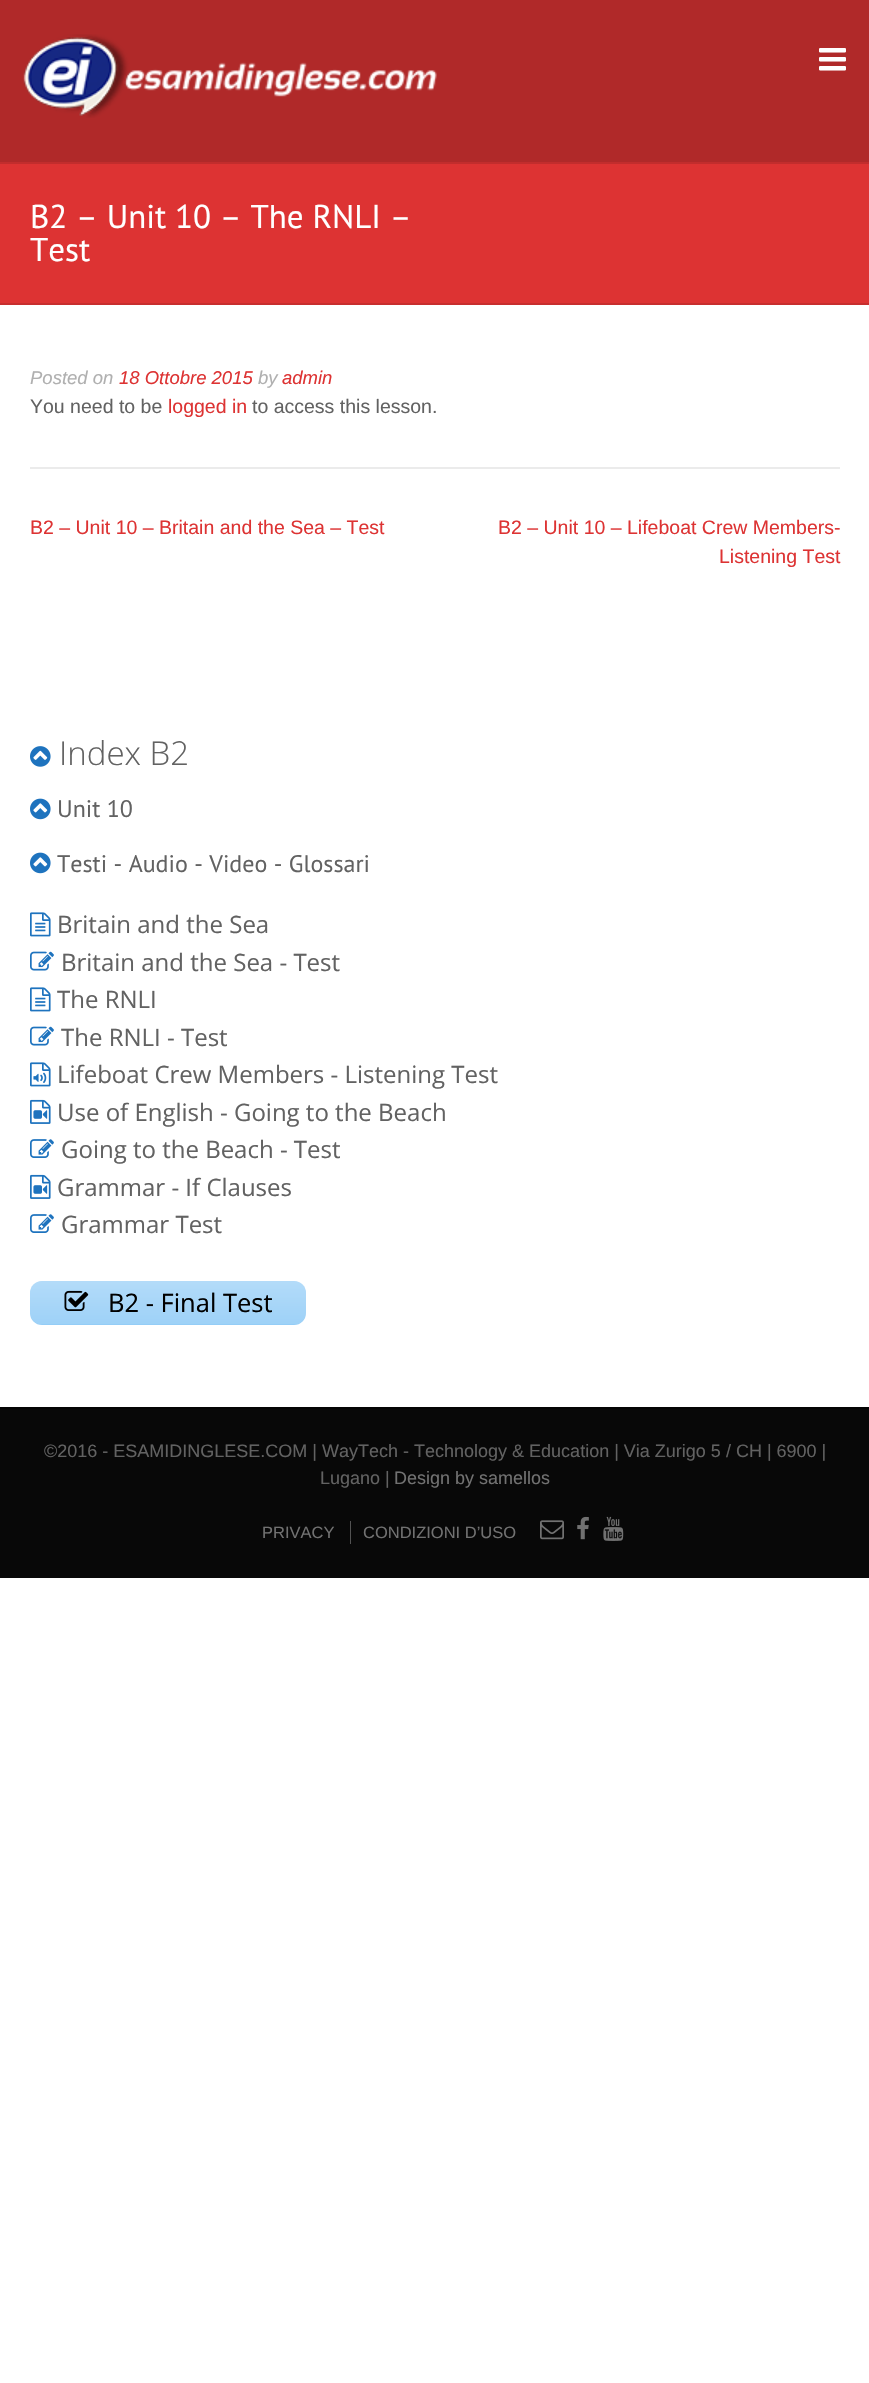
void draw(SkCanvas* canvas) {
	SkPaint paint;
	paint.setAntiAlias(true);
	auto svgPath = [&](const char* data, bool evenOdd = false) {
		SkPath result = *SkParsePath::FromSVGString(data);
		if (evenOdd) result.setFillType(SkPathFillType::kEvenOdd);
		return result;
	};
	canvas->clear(0xffffffff);
	paint.setColor(0xffc22d2d);
	canvas->drawRect(SkRect::MakeXYWH(0, 162, 869, 2), paint);
	paint.setColor(0xffb02929);
	canvas->drawRect(SkRect::MakeXYWH(0, 0, 869, 162), paint);
	canvas->drawImageRect(SkImages::DeferredFromEncodedData(SkData::MakeFromFileName("img1.png")), SkRect::MakeXYWH(23, 34, 414, 84), SkSamplingOptions());
	canvas->drawImageRect(SkImages::DeferredFromEncodedData(SkData::MakeFromFileName("img2.png")), SkRect::MakeXYWH(819, 48, 27, 23), SkSamplingOptions());
	paint.setColor(0xffdd3333);
	canvas->drawRect(SkRect::MakeXYWH(0, 164, 869, 139), paint);
	paint.setColor(0xffc72e2e);
	canvas->drawRect(SkRect::MakeXYWH(0, 303, 869, 2), paint);
	SkFont f1(fontMgr->matchFamilyStyle("PT Sans", SkFontStyle::Normal()), 33);
	f1.setSubpixel(true);
	paint.setColor(0xffffffff);
	canvas->drawString("B2 – Unit 10 – The RNLI –", 30, 228, f1, paint);
	canvas->drawString("Test", 30, 261, f1, paint);
	paint.setColor(0xffebebeb);
	canvas->drawRect(SkRect::MakeXYWH(30, 467, 810, 2), paint);
	SkFont f2(fontMgr->matchFamilyStyle("Liberation Sans", SkFontStyle::Italic()), 18.5);
	f2.setSubpixel(true);
	paint.setColor(0xffb0b0b0);
	canvas->drawString("Posted on", 30, 384, f2, paint);
	paint.setColor(0xffdd3333);
	canvas->drawString("18 Ottobre 2015", 119, 384, f2, paint);
	paint.setColor(0xffb0b0b0);
	canvas->drawString("by", 258, 384, f2, paint);
	paint.setColor(0xffdd3333);
	canvas->drawString("admin", 282, 384, f2, paint);
	SkFont f3(fontMgr->matchFamilyStyle("Liberation Sans", SkFontStyle::Normal()), 19.5);
	f3.setSubpixel(true);
	paint.setColor(0xff626262);
	canvas->drawString("You need to be", 30, 413, f3, paint);
	paint.setColor(0xffdd3333);
	canvas->drawString("logged in", 168, 413, f3, paint);
	paint.setColor(0xff626262);
	canvas->drawString("to access this lesson.", 252, 413, f3, paint);
	paint.setColor(0xffdd3333);
	canvas->drawString("B2 – Unit 10 – Britain and the Sea – Test", 30, 534, f3, paint);
	canvas->drawString("B2 – Unit 10 – Lifeboat Crew Members-", 498, 534, f3, paint);
	canvas->drawString("Listening Test", 719, 563, f3, paint);
	canvas->drawImageRect(SkImages::DeferredFromEncodedData(SkData::MakeFromFileName("img3.png")), SkRect::MakeXYWH(30, 746, 21, 21), SkSamplingOptions());
	SkFont f4(fontMgr->matchFamilyStyle("Open Sans", SkFontStyle(300, SkFontStyle::kNormal_Width, SkFontStyle::kUpright_Slant)), 33);
	f4.setSubpixel(true);
	paint.setColor(0xff626262);
	canvas->drawString("Index B2", 59, 765, f4, paint);
	canvas->drawImageRect(SkImages::DeferredFromEncodedData(SkData::MakeFromFileName("img4.png")), SkRect::MakeXYWH(30, 798, 21, 22), SkSamplingOptions());
	SkFont f5(fontMgr->matchFamilyStyle("PT Sans", SkFontStyle::Normal()), 24);
	f5.setSubpixel(true);
	canvas->drawString("Unit 10", 57, 817, f5, paint);
	canvas->drawImageRect(SkImages::DeferredFromEncodedData(SkData::MakeFromFileName("img4.png")), SkRect::MakeXYWH(30, 852, 21, 22), SkSamplingOptions());
	canvas->drawString("Testi - Audio - Video - Glossari", 57, 872, f5, paint);
	canvas->drawImageRect(SkImages::DeferredFromEncodedData(SkData::MakeFromFileName("img5.png")), SkRect::MakeXYWH(30, 912, 21, 25), SkSamplingOptions());
	SkFont f6(fontMgr->matchFamilyStyle("Open Sans", SkFontStyle::Normal()), 24);
	f6.setSubpixel(true);
	canvas->drawString("Britain and the Sea", 57, 933, f6, paint);
	canvas->drawImageRect(SkImages::DeferredFromEncodedData(SkData::MakeFromFileName("img6.png")), SkRect::MakeXYWH(30, 951, 24, 20), SkSamplingOptions());
	canvas->drawString("Britain and the Sea - Test", 61, 971, f6, paint);
	canvas->drawImageRect(SkImages::DeferredFromEncodedData(SkData::MakeFromFileName("img5.png")), SkRect::MakeXYWH(30, 987, 21, 25), SkSamplingOptions());
	canvas->drawString("The RNLI", 57, 1008, f6, paint);
	canvas->drawImageRect(SkImages::DeferredFromEncodedData(SkData::MakeFromFileName("img6.png")), SkRect::MakeXYWH(30, 1026, 24, 20), SkSamplingOptions());
	canvas->drawString("The RNLI - Test", 61, 1046, f6, paint);
	canvas->drawImageRect(SkImages::DeferredFromEncodedData(SkData::MakeFromFileName("img7.png")), SkRect::MakeXYWH(30, 1062, 21, 25), SkSamplingOptions());
	canvas->drawString("Lifeboat Crew Members - Listening Test", 57, 1083, f6, paint);
	canvas->drawImageRect(SkImages::DeferredFromEncodedData(SkData::MakeFromFileName("img8.png")), SkRect::MakeXYWH(30, 1099, 21, 25), SkSamplingOptions());
	canvas->drawString("Use of English - Going to the Beach", 57, 1121, f6, paint);
	canvas->drawImageRect(SkImages::DeferredFromEncodedData(SkData::MakeFromFileName("img9.png")), SkRect::MakeXYWH(30, 1139, 24, 19), SkSamplingOptions());
	canvas->drawString("Going to the Beach - Test", 61, 1158, f6, paint);
	canvas->drawImageRect(SkImages::DeferredFromEncodedData(SkData::MakeFromFileName("img8.png")), SkRect::MakeXYWH(30, 1174, 21, 25), SkSamplingOptions());
	canvas->drawString("Grammar - If Clauses", 57, 1196, f6, paint);
	canvas->drawImageRect(SkImages::DeferredFromEncodedData(SkData::MakeFromFileName("img9.png")), SkRect::MakeXYWH(30, 1214, 24, 19), SkSamplingOptions());
	canvas->drawString("Grammar Test", 61, 1233, f6, paint);
	paint.setColor(0xff94cdf7);
	canvas->drawRoundRect(SkRect::MakeXYWH(30, 1281, 276, 44), 12, 12, paint);
	canvas->drawImageRect(SkImages::DeferredFromEncodedData(SkData::MakeFromFileName("img10.png")), SkRect::MakeXYWH(30, 1281, 276, 43), SkSamplingOptions());
	canvas->drawImageRect(SkImages::DeferredFromEncodedData(SkData::MakeFromFileName("img11.png")), SkRect::MakeXYWH(64, 1290, 25, 21), SkSamplingOptions());
	SkFont f7(fontMgr->matchFamilyStyle("Open Sans", SkFontStyle::Normal()), 25.5);
	f7.setSubpixel(true);
	paint.setColor(0xff000000);
	canvas->drawString("B2 - Final Test", 108, 1312, f7, paint);
	paint.setColor(0xff080808);
	canvas->drawRect(SkRect::MakeXYWH(0, 1409, 869, 169), paint);
	paint.setColor(0xff040404);
	canvas->drawRect(SkRect::MakeXYWH(0, 1407, 869, 2), paint);
	SkFont f8(fontMgr->matchFamilyStyle("Liberation Sans", SkFontStyle::Normal()), 18);
	f8.setSubpixel(true);
	paint.setColor(0xff626262);
	canvas->drawString("©2016 - ESAMIDINGLESE.COM | WayTech - Technology & Education | Via Zurigo 5 / CH | 6900 |", 44, 1457, f8, paint);
	canvas->drawString("Lugano |", 320, 1484, f8, paint);
	paint.setColor(0xff717171);
	canvas->drawString("Design by samellos", 394, 1484, f8, paint);
	SkFont f9(fontMgr->matchFamilyStyle("Liberation Sans", SkFontStyle::Normal()), 16.5);
	f9.setSubpixel(true);
	canvas->drawString("PRIVACY", 262, 1538, f9, paint);
	paint.setColor(0xff525252);
	canvas->drawPath(svgPath("M350 1521V1544H522H351V1521Z"), paint);
	paint.setColor(0xff717171);
	canvas->drawString("CONDIZIONI D’USO", 363, 1538, f9, paint);
	canvas->drawImageRect(SkImages::DeferredFromEncodedData(SkData::MakeFromFileName("img12.png")), SkRect::MakeXYWH(540, 1520, 24, 20), SkSamplingOptions());
	canvas->drawImageRect(SkImages::DeferredFromEncodedData(SkData::MakeFromFileName("img13.png")), SkRect::MakeXYWH(577, 1516, 12, 24), SkSamplingOptions());
	canvas->drawImageRect(SkImages::DeferredFromEncodedData(SkData::MakeFromFileName("img14.png")), SkRect::MakeXYWH(603, 1516, 21, 25), SkSamplingOptions());
}
